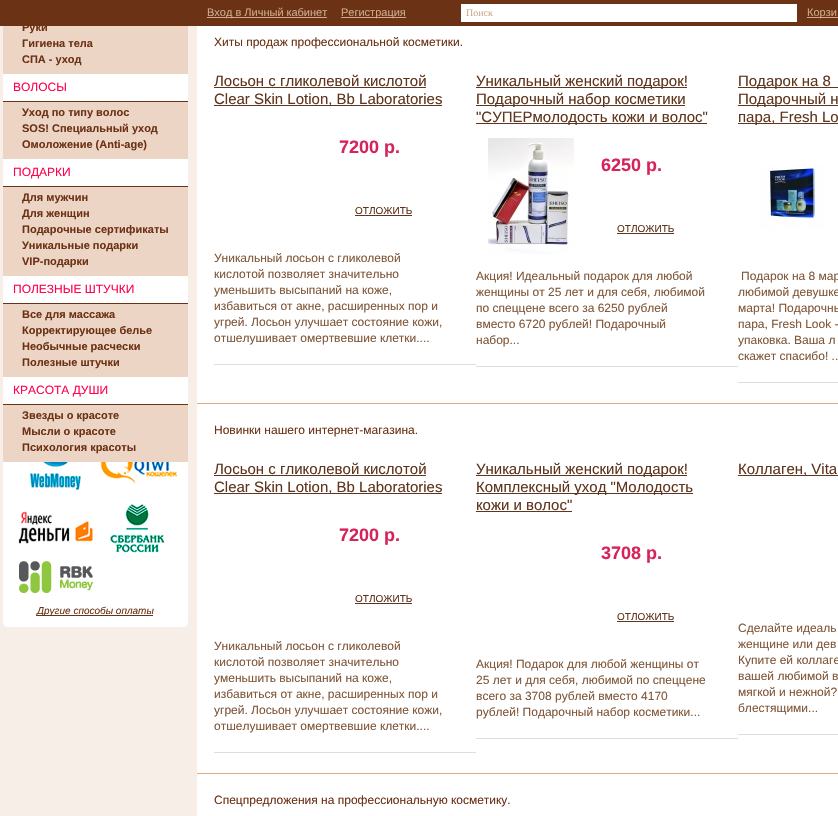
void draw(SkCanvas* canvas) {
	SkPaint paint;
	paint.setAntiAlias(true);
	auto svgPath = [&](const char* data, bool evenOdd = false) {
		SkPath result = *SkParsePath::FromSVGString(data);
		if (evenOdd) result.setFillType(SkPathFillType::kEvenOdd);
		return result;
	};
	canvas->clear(0xfff8eee8);
	paint.setColor(0xff6c3215);
	canvas->drawRect(SkRect::MakeXYWH(0, 0, 838, 26), paint);
	paint.setColor(0xffcea98c);
	canvas->drawRect(SkRect::MakeXYWH(207, 17, 120, 1), paint);
	SkFont f1(fontMgr->matchFamilyStyle("Liberation Sans", SkFontStyle::Normal()), 11);
	f1.setSubpixel(true);
	canvas->drawString("Вход в Личный кабинет", 207, 16, f1, paint);
	canvas->drawRect(SkRect::MakeXYWH(341, 17, 65, 1), paint);
	canvas->drawString("Регистрация", 341, 16, f1, paint);
	paint.setColor(0xffffffff);
	canvas->drawRect(SkRect::MakeXYWH(461, 4, 336, 18), paint);
	SkFont f2(fontMgr->matchFamilyStyle("Liberation Serif", SkFontStyle::Normal()), 10);
	f2.setSubpixel(true);
	paint.setColor(0xffcea98c);
	canvas->drawString("Поиск", 466, 16, f2, paint);
	canvas->drawRect(SkRect::MakeXYWH(807, 17, 31, 1), paint);
	canvas->drawString("Корзи", 807, 16, f1, paint);
	paint.setColor(0xffffffff);
	canvas->drawRect(SkRect::MakeXYWH(197, 404, 641, 412), paint);
	paint.setColor(0xffedd5c5);
	canvas->drawRect(SkRect::MakeXYWH(3, 26, 185, 48), paint);
	SkFont f3(fontMgr->matchFamilyStyle("Liberation Sans", SkFontStyle::Bold()), 11);
	f3.setSubpixel(true);
	paint.setColor(0xff6c3215);
	canvas->drawString("Руки", 22, 31, f3, paint);
	canvas->drawString("Гигиена тела", 22, 47, f3, paint);
	canvas->drawString("СПА - уход", 22, 63, f3, paint);
	paint.setColor(0xffffffff);
	canvas->drawRect(SkRect::MakeXYWH(3, 74, 185, 27), paint);
	paint.setColor(0xff6c3215);
	canvas->drawRect(SkRect::MakeXYWH(3, 101, 185, 1), paint);
	SkFont f4(fontMgr->matchFamilyStyle("Liberation Sans", SkFontStyle::Normal()), 12);
	f4.setSubpixel(true);
	paint.setColor(0xffff0351);
	canvas->drawString("ВОЛОСЫ", 13, 91, f4, paint);
	paint.setColor(0xffedd5c5);
	canvas->drawRect(SkRect::MakeXYWH(3, 102, 185, 57), paint);
	paint.setColor(0xff6c3215);
	canvas->drawString("Уход по типу волос", 22, 116, f3, paint);
	canvas->drawString("SOS! Специальный уход", 22, 132, f3, paint);
	canvas->drawString("Омоложение (Anti-age)", 22, 148, f3, paint);
	paint.setColor(0xffffffff);
	canvas->drawRect(SkRect::MakeXYWH(3, 159, 185, 27), paint);
	paint.setColor(0xff6c3215);
	canvas->drawRect(SkRect::MakeXYWH(3, 186, 185, 1), paint);
	paint.setColor(0xffff0351);
	canvas->drawString("ПОДАРКИ", 13, 176, f4, paint);
	paint.setColor(0xffedd5c5);
	canvas->drawRect(SkRect::MakeXYWH(3, 187, 185, 89), paint);
	paint.setColor(0xff6c3215);
	canvas->drawString("Для мужчин", 22, 201, f3, paint);
	canvas->drawString("Для женщин", 22, 217, f3, paint);
	canvas->drawString("Подарочные сертификаты", 22, 233, f3, paint);
	canvas->drawString("Уникальные подарки", 22, 249, f3, paint);
	canvas->drawString("VIP-подарки", 22, 265, f3, paint);
	paint.setColor(0xffffffff);
	canvas->drawRect(SkRect::MakeXYWH(3, 276, 185, 27), paint);
	paint.setColor(0xff6c3215);
	canvas->drawRect(SkRect::MakeXYWH(3, 303, 185, 1), paint);
	paint.setColor(0xffff0351);
	canvas->drawString("ПОЛЕЗНЫЕ ШТУЧКИ", 13, 293, f4, paint);
	paint.setColor(0xffffffff);
	canvas->drawPath(svgPath("M3 323H188V622C188 625 186 627 183 627H8C5 627 3 625 3 622Z"), paint);
	paint.setColor(0xffedd5c5);
	canvas->drawRect(SkRect::MakeXYWH(3, 304, 185, 73), paint);
	paint.setColor(0xff6c3215);
	canvas->drawString("Все для массажа", 22, 318, f3, paint);
	canvas->drawString("Корректирующее белье", 22, 334, f3, paint);
	canvas->drawString("Необычные расчески", 22, 350, f3, paint);
	canvas->drawString("Полезные штучки", 22, 366, f3, paint);
	canvas->drawRect(SkRect::MakeXYWH(3, 404, 185, 1), paint);
	paint.setColor(0xffff0351);
	canvas->drawString("КРАСОТА ДУШИ", 13, 394, f4, paint);
	paint.setColor(0xffedd5c5);
	canvas->drawRect(SkRect::MakeXYWH(3, 405, 185, 57), paint);
	paint.setColor(0xff6c3215);
	canvas->drawString("Звезды о красоте", 22, 419, f3, paint);
	canvas->drawString("Мысли о красоте", 22, 435, f3, paint);
	canvas->drawString("Психология красоты", 22, 451, f3, paint);
	paint.setColor(0xffffffff);
	canvas->drawRect(SkRect::MakeXYWH(197, 26, 641, 377), paint);
	paint.setColor(0xff6c3215);
	canvas->drawString("Хиты продаж профессиональной косметики.", 214, 46, f4, paint);
	paint.setColor(0xffe3dcd8);
	canvas->drawRect(SkRect::MakeXYWH(214, 364, 262, 1), paint);
	SkFont f5(fontMgr->matchFamilyStyle("Liberation Sans", SkFontStyle::Normal()), 15);
	f5.setSubpixel(true);
	paint.setColor(0xff5f351d);
	canvas->drawString("Лосьон с гликолевой кислотой", 214, 86, f5, paint);
	canvas->drawRect(SkRect::MakeXYWH(214, 87, 212, 1), paint);
	canvas->drawRect(SkRect::MakeXYWH(214, 105, 228, 1), paint);
	canvas->drawString("Clear Skin Lotion, Bb Laboratories", 214, 104, f5, paint);
	SkFont f6(fontMgr->matchFamilyStyle("Liberation Sans", SkFontStyle::Bold()), 18);
	f6.setSubpixel(true);
	paint.setColor(0xffd5245b);
	canvas->drawString("7200 р.", 339, 153, f6, paint);
	SkFont f7(fontMgr->matchFamilyStyle("Liberation Sans", SkFontStyle::Normal()), 10);
	f7.setSubpixel(true);
	paint.setColor(0xff5f351d);
	canvas->drawString("ОТЛОЖИТЬ", 355, 214, f7, paint);
	canvas->drawRect(SkRect::MakeXYWH(355, 215, 57, 1), paint);
	paint.setColor(0xff805739);
	canvas->drawString("Уникальный лосьон с гликолевой", 214, 262, f4, paint);
	canvas->drawString("кислотой позволяет значительно", 214, 278, f4, paint);
	canvas->drawString("уменьшить высыпаний на коже,", 214, 294, f4, paint);
	canvas->drawString("избавиться от акне, расширенных пор и", 214, 310, f4, paint);
	canvas->drawString("угрей. Лосьон улучшает состояние кожи,", 214, 326, f4, paint);
	canvas->drawString("отшелушивает омертвевшие клетки....", 214, 342, f4, paint);
	paint.setColor(0xffe3dcd8);
	canvas->drawRect(SkRect::MakeXYWH(476, 366, 262, 1), paint);
	paint.setColor(0xff5f351d);
	canvas->drawRect(SkRect::MakeXYWH(476, 87, 211, 1), paint);
	canvas->drawString("Уникальный женский подарок!", 476, 86, f5, paint);
	canvas->drawRect(SkRect::MakeXYWH(476, 105, 209, 1), paint);
	canvas->drawString("Подарочный набор косметики", 476, 104, f5, paint);
	canvas->drawRect(SkRect::MakeXYWH(476, 123, 231, 1), paint);
	canvas->drawString("\"СУПЕРмолодость кожи и волос\"", 476, 122, f5, paint);
	canvas->drawImageRect(SkImages::DeferredFromEncodedData(SkData::MakeFromFileName("img1.png")), SkRect::MakeXYWH(488, 138, 86, 116), SkSamplingOptions());
	paint.setColor(0xffd5245b);
	canvas->drawString("6250 р.", 601, 171, f6, paint);
	paint.setColor(0xff5f351d);
	canvas->drawString("ОТЛОЖИТЬ", 617, 232, f7, paint);
	canvas->drawRect(SkRect::MakeXYWH(617, 233, 57, 1), paint);
	paint.setColor(0xff805739);
	canvas->drawString("Акция! Идеальный подарок для любой", 476, 280, f4, paint);
	canvas->drawString("женщины от 25 лет и для себя, любимой", 476, 296, f4, paint);
	canvas->drawString("по спеццене всего за 6250 рублей", 476, 312, f4, paint);
	canvas->drawString("вместо 6720 рублей! Подарочный", 476, 328, f4, paint);
	canvas->drawString("набор...", 476, 344, f4, paint);
	paint.setColor(0xffe3dcd8);
	canvas->drawRect(SkRect::MakeXYWH(738, 382, 100, 1), paint);
	paint.setColor(0xff5f351d);
	canvas->drawRect(SkRect::MakeXYWH(738, 87, 100, 1), paint);
	canvas->drawString("Подарок на 8", 738, 86, f5, paint);
	canvas->drawRect(SkRect::MakeXYWH(738, 105, 100, 1), paint);
	canvas->drawString("Подарочный н", 738, 104, f5, paint);
	canvas->drawRect(SkRect::MakeXYWH(738, 123, 100, 1), paint);
	canvas->drawString("пара, Fresh Lo", 738, 122, f5, paint);
	canvas->drawImageRect(SkImages::DeferredFromEncodedData(SkData::MakeFromFileName("img2.png")), SkRect::MakeXYWH(759, 165, 65, 64), SkSamplingOptions());
	paint.setColor(0xff805739);
	canvas->drawString("Подарок на 8 мар", 741, 280, f4, paint);
	canvas->drawString("любимой девушке", 738, 296, f4, paint);
	canvas->drawString("марта! Подарочны", 738, 312, f4, paint);
	canvas->drawString("пара, Fresh Look -", 738, 328, f4, paint);
	canvas->drawString("упаковка. Ваша л", 738, 344, f4, paint);
	canvas->drawString("скажет спасибо! ..", 738, 360, f4, paint);
	paint.setColor(0xffdcab8c);
	canvas->drawRect(SkRect::MakeXYWH(197, 403, 641, 1), paint);
	paint.setColor(0xff6c3215);
	canvas->drawString("Новинки нашего интернет-магазина.", 214, 434, f4, paint);
	paint.setColor(0xffe3dcd8);
	canvas->drawRect(SkRect::MakeXYWH(214, 752, 262, 1), paint);
	paint.setColor(0xff5f351d);
	canvas->drawString("Лосьон с гликолевой кислотой", 214, 474, f5, paint);
	canvas->drawRect(SkRect::MakeXYWH(214, 475, 212, 1), paint);
	canvas->drawRect(SkRect::MakeXYWH(214, 493, 228, 1), paint);
	canvas->drawString("Clear Skin Lotion, Bb Laboratories", 214, 492, f5, paint);
	paint.setColor(0xffd5245b);
	canvas->drawString("7200 р.", 339, 541, f6, paint);
	paint.setColor(0xff5f351d);
	canvas->drawString("ОТЛОЖИТЬ", 355, 602, f7, paint);
	canvas->drawRect(SkRect::MakeXYWH(355, 603, 57, 1), paint);
	paint.setColor(0xff805739);
	canvas->drawString("Уникальный лосьон с гликолевой", 214, 650, f4, paint);
	canvas->drawString("кислотой позволяет значительно", 214, 666, f4, paint);
	canvas->drawString("уменьшить высыпаний на коже,", 214, 682, f4, paint);
	canvas->drawString("избавиться от акне, расширенных пор и", 214, 698, f4, paint);
	canvas->drawString("угрей. Лосьон улучшает состояние кожи,", 214, 714, f4, paint);
	canvas->drawString("отшелушивает омертвевшие клетки....", 214, 730, f4, paint);
	paint.setColor(0xffe3dcd8);
	canvas->drawRect(SkRect::MakeXYWH(476, 738, 262, 1), paint);
	paint.setColor(0xff5f351d);
	canvas->drawRect(SkRect::MakeXYWH(476, 475, 211, 1), paint);
	canvas->drawString("Уникальный женский подарок!", 476, 474, f5, paint);
	canvas->drawRect(SkRect::MakeXYWH(476, 493, 217, 1), paint);
	canvas->drawString("Комплексный уход \"Молодость", 476, 492, f5, paint);
	canvas->drawString("кожи и волос\"", 476, 510, f5, paint);
	canvas->drawRect(SkRect::MakeXYWH(476, 511, 96, 1), paint);
	paint.setColor(0xffd5245b);
	canvas->drawString("3708 р.", 601, 559, f6, paint);
	paint.setColor(0xff5f351d);
	canvas->drawString("ОТЛОЖИТЬ", 617, 620, f7, paint);
	canvas->drawRect(SkRect::MakeXYWH(617, 621, 57, 1), paint);
	paint.setColor(0xff805739);
	canvas->drawString("Акция! Подарок для любой женщины от", 476, 668, f4, paint);
	canvas->drawString("25 лет и для себя, любимой по спеццене", 476, 684, f4, paint);
	canvas->drawString("всего за 3708 рублей вместо 4170", 476, 700, f4, paint);
	canvas->drawString("рублей! Подарочный набор косметики...", 476, 716, f4, paint);
	paint.setColor(0xffe3dcd8);
	canvas->drawRect(SkRect::MakeXYWH(738, 734, 100, 1), paint);
	paint.setColor(0xff5f351d);
	canvas->drawRect(SkRect::MakeXYWH(738, 475, 100, 1), paint);
	canvas->drawString("Коллаген, Vita", 738, 474, f5, paint);
	paint.setColor(0xff805739);
	canvas->drawString("Сделайте идеаль", 738, 632, f4, paint);
	canvas->drawString("женщине или дев", 738, 648, f4, paint);
	canvas->drawString("Купите ей коллаге", 738, 664, f4, paint);
	canvas->drawString("вашей любимой в", 738, 680, f4, paint);
	canvas->drawString("мягкой и нежной?", 738, 696, f4, paint);
	canvas->drawString("блестящими...", 738, 712, f4, paint);
	paint.setColor(0xffdcab8c);
	canvas->drawRect(SkRect::MakeXYWH(197, 773, 641, 1), paint);
	paint.setColor(0xff6c3215);
	canvas->drawString("Спецпредложения на профессиональную косметику.", 214, 804, f4, paint);
	canvas->drawImageRect(SkImages::DeferredFromEncodedData(SkData::MakeFromFileName("img3.png")), SkRect::MakeXYWH(29, 462, 52, 29), SkSamplingOptions());
	canvas->drawImageRect(SkImages::DeferredFromEncodedData(SkData::MakeFromFileName("img4.png")), SkRect::MakeXYWH(100, 462, 77, 22), SkSamplingOptions());
	canvas->drawImageRect(SkImages::DeferredFromEncodedData(SkData::MakeFromFileName("img5.png")), SkRect::MakeXYWH(18, 511, 75, 33), SkSamplingOptions());
	canvas->drawImageRect(SkImages::DeferredFromEncodedData(SkData::MakeFromFileName("img6.png")), SkRect::MakeXYWH(110, 500, 55, 53), SkSamplingOptions());
	canvas->drawImageRect(SkImages::DeferredFromEncodedData(SkData::MakeFromFileName("img7.png")), SkRect::MakeXYWH(19, 561, 74, 32), SkSamplingOptions());
	canvas->drawRect(SkRect::MakeXYWH(37, 615, 116, 1), paint);
	SkFont f8(fontMgr->matchFamilyStyle("Liberation Sans", SkFontStyle::Italic()), 10);
	f8.setSubpixel(true);
	canvas->drawString("Другие способы оплаты", 37, 614, f8, paint);
}
